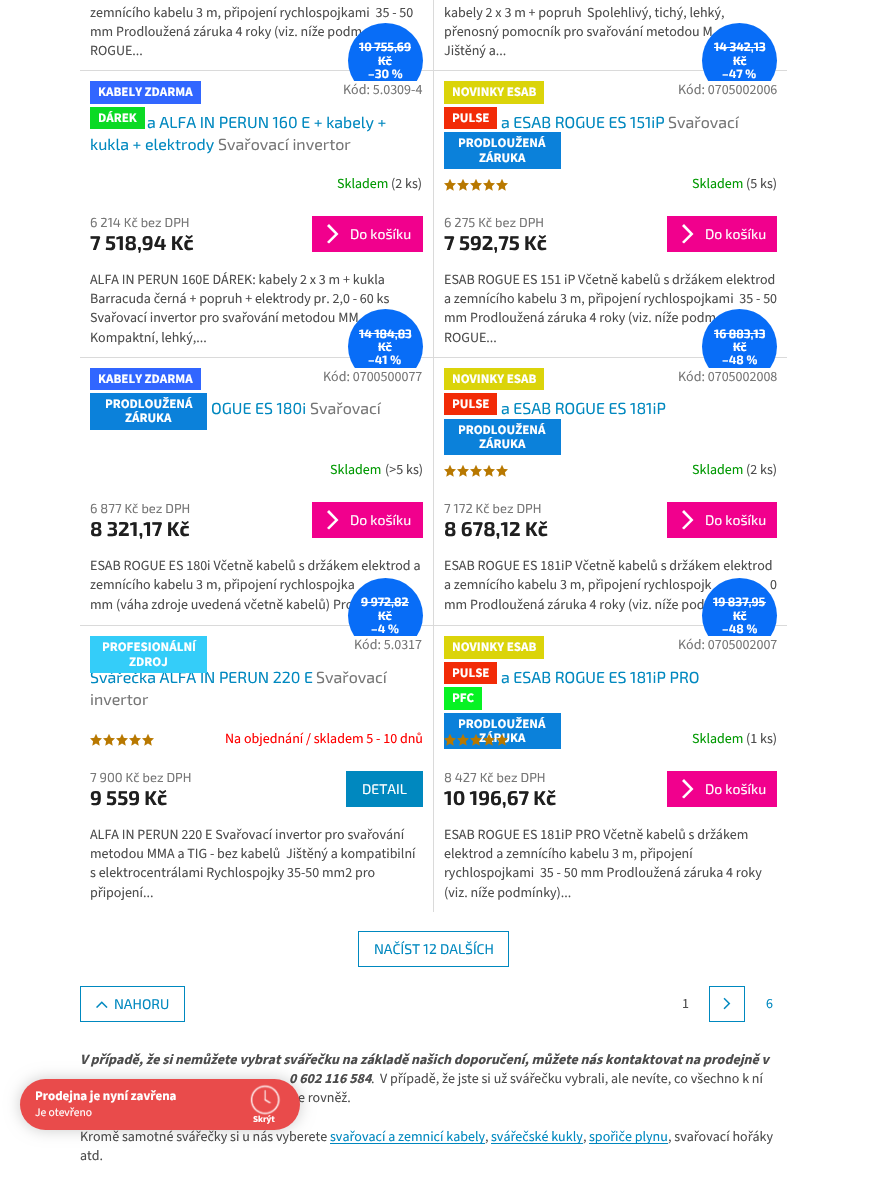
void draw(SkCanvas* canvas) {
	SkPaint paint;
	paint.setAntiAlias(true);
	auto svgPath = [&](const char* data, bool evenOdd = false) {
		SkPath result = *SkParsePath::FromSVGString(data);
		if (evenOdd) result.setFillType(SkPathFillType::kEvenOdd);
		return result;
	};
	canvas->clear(0xffffffff);
	paint.setColor(0xffdadada);
	canvas->drawRect(SkRect::MakeXYWH(433, 0, 1, 70), paint);
	SkFont f1(fontMgr->matchFamilyStyle("Source Sans 3", SkFontStyle::Normal()), 14);
	f1.setSubpixel(true);
	paint.setColor(0xff4d4d4d);
	canvas->drawString("zemnícího kabelu 3 m, připojení rychlospojkami  35 - 50", 90, 17, f1, paint);
	canvas->drawString("mm Prodloužená záruka 4 roky (viz. níže podm", 90, 36, f1, paint);
	canvas->drawString("ROGUE...", 90, 55, f1, paint);
	canvas->drawString("kabely 2 x 3 m + popruh  Spolehlivý, tichý, lehký,", 444, 17, f1, paint);
	canvas->drawString("přenosný pomocník pro svařování metodou M", 444, 36, f1, paint);
	canvas->drawString("Jištěný a...", 444, 55, f1, paint);
	paint.setColor(0xffdadada);
	canvas->drawRect(SkRect::MakeXYWH(80, 70, 707, 1), paint);
	canvas->drawRect(SkRect::MakeXYWH(433, 70, 1, 287), paint);
	paint.setColor(0xff086df7);
	canvas->drawCircle(385.5, 60.5, 37.5, paint);
	SkFont f2(fontMgr->matchFamilyStyle("Exo 2", SkFontStyle::Bold()), 12);
	f2.setSubpixel(true);
	paint.setColor(0xffffffff);
	canvas->drawString("10 755,69", 359, 51, f2, paint);
	canvas->drawRect(SkRect::MakeXYWH(359, 47, 52, 1), paint);
	canvas->drawString("Kč", 378, 65, f2, paint);
	canvas->drawRect(SkRect::MakeXYWH(378, 60, 14, 1), paint);
	canvas->drawString("–30 %", 368, 78, f2, paint);
	paint.setColor(0xff3166ff);
	canvas->drawRect(SkRect::MakeXYWH(90, 81, 111, 23), paint);
	SkFont f3(fontMgr->matchFamilyStyle("Source Sans 3", SkFontStyle::Bold()), 13);
	f3.setSubpixel(true);
	paint.setColor(0xffffffff);
	canvas->drawString("KABELY ZDARMA", 98, 96, f3, paint);
	paint.setColor(0xff0bda24);
	canvas->drawRect(SkRect::MakeXYWH(90, 107, 55, 22), paint);
	paint.setColor(0xffffffff);
	canvas->drawString("DÁREK", 98, 122, f3, paint);
	canvas->drawRect(SkRect::MakeXYWH(354, 81, 63, 17), paint);
	paint.setColor(0xff767676);
	canvas->drawString("Kód: 5.0309-4", 343, 94, f1, paint);
	SkFont f4(fontMgr->matchFamilyStyle("Exo 2", SkFontStyle::Normal()), 16);
	f4.setSubpixel(true);
	paint.setColor(0xff0088bf);
	canvas->drawString("a ALFA IN PERUN 160 E + kabely +", 147, 128, f4, paint);
	canvas->drawString("kukla + elektrody", 90, 150, f4, paint);
	paint.setColor(0xff767676);
	canvas->drawString("Svařovací invertor", 218, 150, f4, paint);
	paint.setColor(0xff009901);
	canvas->drawString("Skladem", 337, 188, f1, paint);
	paint.setColor(0xff4d4d4d);
	canvas->drawString("(2 ks)", 391, 188, f1, paint);
	SkFont f5(fontMgr->matchFamilyStyle("Exo 2", SkFontStyle::Normal()), 13);
	f5.setSubpixel(true);
	paint.setColor(0xff767676);
	canvas->drawString("6 214 Kč bez DPH", 90, 227, f5, paint);
	SkFont f6(fontMgr->matchFamilyStyle("Exo 2", SkFontStyle::Bold()), 20);
	f6.setSubpixel(true);
	paint.setColor(0xff1f1f1f);
	canvas->drawString("7 518,94 Kč", 90, 250, f6, paint);
	paint.setColor(0xfff1008d);
	canvas->drawRect(SkRect::MakeXYWH(312, 216, 111, 36), paint);
	paint.setColor(0xffffffff);
	canvas->drawPath(svgPath("M329 243.5L327 242L335 234L327 226L329 224L338.5 234Z"), paint);
	SkFont f7(fontMgr->matchFamilyStyle("Exo 2", SkFontStyle::Normal()), 14);
	f7.setSubpixel(true);
	canvas->drawString("Do košíku", 350, 239, f7, paint);
	paint.setColor(0xff4d4d4d);
	canvas->drawString("ALFA IN PERUN 160E DÁREK: kabely 2 x 3 m + kukla", 90, 284, f1, paint);
	canvas->drawString("Barracuda černá + popruh + elektrody pr. 2,0 - 60 ks", 90, 303, f1, paint);
	canvas->drawString("Svařovací invertor pro svařování metodou MM", 90, 322, f1, paint);
	canvas->drawString("Kompaktní, lehký,...", 90, 342, f1, paint);
	paint.setColor(0xff086df7);
	canvas->drawCircle(739.5, 60.5, 37.5, paint);
	paint.setColor(0xffffffff);
	canvas->drawString("14 342,13", 714, 51, f2, paint);
	canvas->drawRect(SkRect::MakeXYWH(714, 47, 51, 1), paint);
	canvas->drawString("Kč", 733, 65, f2, paint);
	canvas->drawRect(SkRect::MakeXYWH(733, 60, 13, 1), paint);
	canvas->drawString("–47 %", 722, 78, f2, paint);
	paint.setColor(0xffdbd40a);
	canvas->drawRect(SkRect::MakeXYWH(444, 81, 100, 23), paint);
	paint.setColor(0xffffffff);
	canvas->drawString("NOVINKY ESAB", 452, 96, f3, paint);
	paint.setColor(0xfff22b07);
	canvas->drawRect(SkRect::MakeXYWH(444, 107, 53, 22), paint);
	paint.setColor(0xffffffff);
	canvas->drawString("PULSE", 452, 122, f3, paint);
	paint.setColor(0xff0b81da);
	canvas->drawRect(SkRect::MakeXYWH(444, 132, 117, 37), paint);
	paint.setColor(0xffffffff);
	canvas->drawString("PRODLOUŽENÁ", 458, 147, f3, paint);
	canvas->drawString("ZÁRUKA", 479, 162, f3, paint);
	canvas->drawRect(SkRect::MakeXYWH(708, 81, 63, 17), paint);
	paint.setColor(0xff767676);
	canvas->drawString("Kód: 0705002006", 678, 94, f1, paint);
	paint.setColor(0xff0088bf);
	canvas->drawString("a ESAB ROGUE ES 151iP", 501, 128, f4, paint);
	paint.setColor(0xff767676);
	canvas->drawString("Svařovací", 668, 128, f4, paint);
	canvas->drawImageRect(SkImages::DeferredFromEncodedData(SkData::MakeFromFileName("img1.png")), SkRect::MakeXYWH(444, 179, 12, 12), SkSamplingOptions());
	canvas->drawImageRect(SkImages::DeferredFromEncodedData(SkData::MakeFromFileName("img1.png")), SkRect::MakeXYWH(457, 179, 12, 12), SkSamplingOptions());
	canvas->drawImageRect(SkImages::DeferredFromEncodedData(SkData::MakeFromFileName("img1.png")), SkRect::MakeXYWH(470, 179, 12, 12), SkSamplingOptions());
	canvas->drawImageRect(SkImages::DeferredFromEncodedData(SkData::MakeFromFileName("img1.png")), SkRect::MakeXYWH(483, 179, 12, 12), SkSamplingOptions());
	canvas->drawImageRect(SkImages::DeferredFromEncodedData(SkData::MakeFromFileName("img1.png")), SkRect::MakeXYWH(496, 179, 12, 12), SkSamplingOptions());
	paint.setColor(0xff009901);
	canvas->drawString("Skladem", 692, 188, f1, paint);
	paint.setColor(0xff4d4d4d);
	canvas->drawString("(5 ks)", 746, 188, f1, paint);
	paint.setColor(0xff767676);
	canvas->drawString("6 275 Kč bez DPH", 444, 227, f5, paint);
	paint.setColor(0xff1f1f1f);
	canvas->drawString("7 592,75 Kč", 444, 250, f6, paint);
	paint.setColor(0xfff1008d);
	canvas->drawRect(SkRect::MakeXYWH(667, 216, 110, 36), paint);
	paint.setColor(0xffffffff);
	canvas->drawPath(svgPath("M684 243.5L682 242L690 234L682 226L684 224L693.5 234Z"), paint);
	canvas->drawString("Do košíku", 705, 239, f7, paint);
	paint.setColor(0xff4d4d4d);
	canvas->drawString("ESAB ROGUE ES 151 iP Včetně kabelů s držákem elektrod", 444, 284, f1, paint);
	canvas->drawString("a zemnícího kabelu 3 m, připojení rychlospojkami  35 - 50", 444, 303, f1, paint);
	canvas->drawString("mm Prodloužená záruka 4 roky (viz. níže podm", 444, 322, f1, paint);
	canvas->drawString("ROGUE...", 444, 342, f1, paint);
	paint.setColor(0xffdadada);
	canvas->drawRect(SkRect::MakeXYWH(80, 357, 707, 1), paint);
	canvas->drawRect(SkRect::MakeXYWH(433, 357, 1, 268), paint);
	paint.setColor(0xff086df7);
	canvas->drawCircle(385.5, 346.5, 37.5, paint);
	paint.setColor(0xffffffff);
	canvas->drawString("14 184,83", 359, 338, f2, paint);
	canvas->drawRect(SkRect::MakeXYWH(359, 333, 52, 1), paint);
	canvas->drawString("Kč", 378, 351, f2, paint);
	canvas->drawRect(SkRect::MakeXYWH(378, 346, 14, 1), paint);
	canvas->drawString("–41 %", 368, 364, f2, paint);
	paint.setColor(0xff3166ff);
	canvas->drawRect(SkRect::MakeXYWH(90, 368, 111, 22), paint);
	paint.setColor(0xffffffff);
	canvas->drawString("KABELY ZDARMA", 98, 383, f3, paint);
	paint.setColor(0xff0b81da);
	canvas->drawRect(SkRect::MakeXYWH(90, 393, 117, 37), paint);
	paint.setColor(0xffffffff);
	canvas->drawString("PRODLOUŽENÁ", 105, 408, f3, paint);
	canvas->drawString("ZÁRUKA", 125, 422, f3, paint);
	canvas->drawRect(SkRect::MakeXYWH(354, 368, 63, 16), paint);
	paint.setColor(0xff767676);
	canvas->drawString("Kód: 0700500077", 323, 381, f1, paint);
	paint.setColor(0xff0088bf);
	canvas->drawString("OGUE ES 180i", 211, 414, f4, paint);
	paint.setColor(0xff767676);
	canvas->drawString("Svařovací", 310, 414, f4, paint);
	paint.setColor(0xff009901);
	canvas->drawString("Skladem", 330, 474, f1, paint);
	paint.setColor(0xff4d4d4d);
	canvas->drawString("(>5 ks)", 385, 474, f1, paint);
	paint.setColor(0xff767676);
	canvas->drawString("6 877 Kč bez DPH", 90, 513, f5, paint);
	paint.setColor(0xff1f1f1f);
	canvas->drawString("8 321,17 Kč", 90, 536, f6, paint);
	paint.setColor(0xfff1008d);
	canvas->drawRect(SkRect::MakeXYWH(312, 502, 111, 36), paint);
	paint.setColor(0xffffffff);
	canvas->drawPath(svgPath("M329 529.5L327 528L335 520L327 512L329 510L338.5 520Z"), paint);
	canvas->drawString("Do košíku", 350, 525, f7, paint);
	paint.setColor(0xff4d4d4d);
	canvas->drawString("ESAB ROGUE ES 180i Včetně kabelů s držákem elektrod a", 90, 570, f1, paint);
	canvas->drawString("zemnícího kabelu 3 m, připojení rychlospojka", 90, 589, f1, paint);
	canvas->drawString("mm (váha zdroje uvedená včetně kabelů) Pro", 90, 609, f1, paint);
	paint.setColor(0xff086df7);
	canvas->drawCircle(739.5, 346.5, 37.5, paint);
	paint.setColor(0xffffffff);
	canvas->drawString("16 883,13", 714, 338, f2, paint);
	canvas->drawRect(SkRect::MakeXYWH(714, 333, 51, 1), paint);
	canvas->drawString("Kč", 733, 351, f2, paint);
	canvas->drawRect(SkRect::MakeXYWH(733, 346, 13, 1), paint);
	canvas->drawString("–48 %", 722, 364, f2, paint);
	paint.setColor(0xffdbd40a);
	canvas->drawRect(SkRect::MakeXYWH(444, 368, 100, 22), paint);
	paint.setColor(0xffffffff);
	canvas->drawString("NOVINKY ESAB", 452, 383, f3, paint);
	paint.setColor(0xfff22b07);
	canvas->drawRect(SkRect::MakeXYWH(444, 393, 53, 22), paint);
	paint.setColor(0xffffffff);
	canvas->drawString("PULSE", 452, 408, f3, paint);
	paint.setColor(0xff0b81da);
	canvas->drawRect(SkRect::MakeXYWH(444, 419, 117, 36), paint);
	paint.setColor(0xffffffff);
	canvas->drawString("PRODLOUŽENÁ", 458, 434, f3, paint);
	canvas->drawString("ZÁRUKA", 479, 448, f3, paint);
	canvas->drawRect(SkRect::MakeXYWH(708, 368, 63, 16), paint);
	paint.setColor(0xff767676);
	canvas->drawString("Kód: 0705002008", 678, 381, f1, paint);
	paint.setColor(0xff0088bf);
	canvas->drawString("a ESAB ROGUE ES 181iP", 501, 414, f4, paint);
	canvas->drawImageRect(SkImages::DeferredFromEncodedData(SkData::MakeFromFileName("img1.png")), SkRect::MakeXYWH(444, 465, 12, 12), SkSamplingOptions());
	canvas->drawImageRect(SkImages::DeferredFromEncodedData(SkData::MakeFromFileName("img1.png")), SkRect::MakeXYWH(457, 465, 12, 12), SkSamplingOptions());
	canvas->drawImageRect(SkImages::DeferredFromEncodedData(SkData::MakeFromFileName("img1.png")), SkRect::MakeXYWH(470, 465, 12, 12), SkSamplingOptions());
	canvas->drawImageRect(SkImages::DeferredFromEncodedData(SkData::MakeFromFileName("img1.png")), SkRect::MakeXYWH(483, 465, 12, 12), SkSamplingOptions());
	canvas->drawImageRect(SkImages::DeferredFromEncodedData(SkData::MakeFromFileName("img1.png")), SkRect::MakeXYWH(496, 465, 12, 12), SkSamplingOptions());
	paint.setColor(0xff009901);
	canvas->drawString("Skladem", 692, 474, f1, paint);
	paint.setColor(0xff4d4d4d);
	canvas->drawString("(2 ks)", 746, 474, f1, paint);
	paint.setColor(0xff767676);
	canvas->drawString("7 172 Kč bez DPH", 444, 513, f5, paint);
	paint.setColor(0xff1f1f1f);
	canvas->drawString("8 678,12 Kč", 444, 536, f6, paint);
	paint.setColor(0xfff1008d);
	canvas->drawRect(SkRect::MakeXYWH(667, 502, 110, 36), paint);
	paint.setColor(0xffffffff);
	canvas->drawPath(svgPath("M684 529.5L682 528L690 520L682 512L684 510L693.5 520Z"), paint);
	canvas->drawString("Do košíku", 705, 525, f7, paint);
	paint.setColor(0xff4d4d4d);
	canvas->drawString("ESAB ROGUE ES 181iP Včetně kabelů s držákem elektrod", 444, 570, f1, paint);
	canvas->drawString("a zemnícího kabelu 3 m, připojení rychlospojk", 444, 589, f1, paint);
	canvas->drawString("0", 770, 589, f1, paint);
	canvas->drawString("mm Prodloužená záruka 4 roky (viz. níže pod", 444, 609, f1, paint);
	paint.setColor(0xffdadada);
	canvas->drawRect(SkRect::MakeXYWH(80, 625, 707, 1), paint);
	canvas->drawRect(SkRect::MakeXYWH(433, 625, 1, 287), paint);
	paint.setColor(0xff086df7);
	canvas->drawCircle(385.5, 615.5, 37.5, paint);
	paint.setColor(0xffffffff);
	canvas->drawString("9 972,82", 361, 606, f2, paint);
	canvas->drawRect(SkRect::MakeXYWH(361, 602, 48, 1), paint);
	canvas->drawString("Kč", 378, 620, f2, paint);
	canvas->drawRect(SkRect::MakeXYWH(378, 615, 14, 1), paint);
	canvas->drawString("–4 %", 371, 633, f2, paint);
	paint.setColor(0xff0088bf);
	canvas->drawString("Svářečka ALFA IN PERUN 220 E", 90, 683, f4, paint);
	paint.setColor(0xff34cdf9);
	canvas->drawRect(SkRect::MakeXYWH(90, 636, 117, 37), paint);
	paint.setColor(0xffffffff);
	canvas->drawString("PROFESIONÁLNÍ", 102, 651, f3, paint);
	canvas->drawString("ZDROJ", 129, 666, f3, paint);
	canvas->drawRect(SkRect::MakeXYWH(354, 636, 63, 17), paint);
	paint.setColor(0xff767676);
	canvas->drawString("Kód: 5.0317", 354, 649, f1, paint);
	canvas->drawString("Svařovací", 316, 683, f4, paint);
	canvas->drawString("invertor", 90, 705, f4, paint);
	canvas->drawImageRect(SkImages::DeferredFromEncodedData(SkData::MakeFromFileName("img1.png")), SkRect::MakeXYWH(90, 734, 12, 12), SkSamplingOptions());
	canvas->drawImageRect(SkImages::DeferredFromEncodedData(SkData::MakeFromFileName("img1.png")), SkRect::MakeXYWH(103, 734, 12, 12), SkSamplingOptions());
	canvas->drawImageRect(SkImages::DeferredFromEncodedData(SkData::MakeFromFileName("img1.png")), SkRect::MakeXYWH(116, 734, 12, 12), SkSamplingOptions());
	canvas->drawImageRect(SkImages::DeferredFromEncodedData(SkData::MakeFromFileName("img1.png")), SkRect::MakeXYWH(129, 734, 12, 12), SkSamplingOptions());
	canvas->drawImageRect(SkImages::DeferredFromEncodedData(SkData::MakeFromFileName("img1.png")), SkRect::MakeXYWH(142, 734, 12, 12), SkSamplingOptions());
	paint.setColor(0xfffe0000);
	canvas->drawString("Na objednání / skladem 5 - 10 dnů", 225, 743, f1, paint);
	paint.setColor(0xff767676);
	canvas->drawString("7 900 Kč bez DPH", 90, 782, f5, paint);
	paint.setColor(0xff1f1f1f);
	canvas->drawString("9 559 Kč", 90, 805, f6, paint);
	paint.setColor(0xff0088bf);
	canvas->drawRect(SkRect::MakeXYWH(346, 771, 77, 36), paint);
	paint.setColor(0xffffffff);
	canvas->drawString("DETAIL", 362, 794, f7, paint);
	paint.setColor(0xff4d4d4d);
	canvas->drawString("ALFA IN PERUN 220 E Svařovací invertor pro svařování", 90, 839, f1, paint);
	canvas->drawString("metodou MMA a TIG - bez kabelů  Jištěný a kompatibilní", 90, 858, f1, paint);
	canvas->drawString("s elektrocentrálami Rychlospojky 35-50 mm2 pro", 90, 877, f1, paint);
	canvas->drawString("připojení...", 90, 897, f1, paint);
	paint.setColor(0xff086df7);
	canvas->drawCircle(739.5, 615.5, 37.5, paint);
	paint.setColor(0xffffffff);
	canvas->drawString("19 837,95", 713, 606, f2, paint);
	canvas->drawRect(SkRect::MakeXYWH(713, 602, 53, 1), paint);
	canvas->drawString("Kč", 733, 620, f2, paint);
	canvas->drawRect(SkRect::MakeXYWH(733, 615, 13, 1), paint);
	canvas->drawString("–48 %", 722, 633, f2, paint);
	paint.setColor(0xffdbd40a);
	canvas->drawRect(SkRect::MakeXYWH(444, 636, 100, 23), paint);
	paint.setColor(0xffffffff);
	canvas->drawString("NOVINKY ESAB", 452, 651, f3, paint);
	paint.setColor(0xfff22b07);
	canvas->drawRect(SkRect::MakeXYWH(444, 662, 53, 22), paint);
	paint.setColor(0xffffffff);
	canvas->drawString("PULSE", 452, 677, f3, paint);
	paint.setColor(0xff07f223);
	canvas->drawRect(SkRect::MakeXYWH(444, 687, 38, 23), paint);
	paint.setColor(0xffffffff);
	canvas->drawString("PFC", 452, 702, f3, paint);
	paint.setColor(0xff0b81da);
	canvas->drawRect(SkRect::MakeXYWH(444, 713, 117, 36), paint);
	paint.setColor(0xffffffff);
	canvas->drawString("PRODLOUŽENÁ", 458, 728, f3, paint);
	canvas->drawString("ZÁRUKA", 479, 742, f3, paint);
	canvas->drawRect(SkRect::MakeXYWH(708, 636, 63, 17), paint);
	paint.setColor(0xff767676);
	canvas->drawString("Kód: 0705002007", 678, 649, f1, paint);
	paint.setColor(0xff0088bf);
	canvas->drawString("a ESAB ROGUE ES 181iP PRO", 501, 683, f4, paint);
	canvas->drawImageRect(SkImages::DeferredFromEncodedData(SkData::MakeFromFileName("img2.png")), SkRect::MakeXYWH(444, 734, 12, 12), SkSamplingOptions());
	canvas->drawImageRect(SkImages::DeferredFromEncodedData(SkData::MakeFromFileName("img2.png")), SkRect::MakeXYWH(457, 734, 12, 12), SkSamplingOptions());
	canvas->drawImageRect(SkImages::DeferredFromEncodedData(SkData::MakeFromFileName("img3.png")), SkRect::MakeXYWH(470, 734, 12, 12), SkSamplingOptions());
	canvas->drawImageRect(SkImages::DeferredFromEncodedData(SkData::MakeFromFileName("img4.png")), SkRect::MakeXYWH(483, 734, 12, 12), SkSamplingOptions());
	canvas->drawImageRect(SkImages::DeferredFromEncodedData(SkData::MakeFromFileName("img5.png")), SkRect::MakeXYWH(496, 734, 12, 12), SkSamplingOptions());
	paint.setColor(0xff009901);
	canvas->drawString("Skladem", 692, 743, f1, paint);
	paint.setColor(0xff4d4d4d);
	canvas->drawString("(1 ks)", 746, 743, f1, paint);
	paint.setColor(0xff767676);
	canvas->drawString("8 427 Kč bez DPH", 444, 782, f5, paint);
	paint.setColor(0xff1f1f1f);
	canvas->drawString("10 196,67 Kč", 444, 805, f6, paint);
	paint.setColor(0xfff1008d);
	canvas->drawRect(SkRect::MakeXYWH(667, 771, 110, 36), paint);
	paint.setColor(0xffffffff);
	canvas->drawPath(svgPath("M684 798.5L682 797L690 789L682 781L684 779L693.5 789Z"), paint);
	canvas->drawString("Do košíku", 705, 794, f7, paint);
	paint.setColor(0xff4d4d4d);
	canvas->drawString("ESAB ROGUE ES 181iP PRO Včetně kabelů s držákem", 444, 839, f1, paint);
	canvas->drawString("elektrod a zemnícího kabelu 3 m, připojení", 444, 858, f1, paint);
	canvas->drawString("rychlospojkami  35 - 50 mm Prodloužená záruka 4 roky", 444, 877, f1, paint);
	canvas->drawString("(viz. níže podmínky)...", 444, 897, f1, paint);
	paint.setStroke(true);
	paint.setStrokeWidth(1);
	paint.setColor(0xff0088bf);
	canvas->drawRect(SkRect::MakeXYWH(358.5, 931.5, 150, 35), paint);
	paint.setStroke(false);
	canvas->drawString("NAČÍST 12 DALŠÍCH", 374, 954, f7, paint);
	paint.setStroke(true);
	canvas->drawRect(SkRect::MakeXYWH(80.5, 986.5, 104, 35), paint);
	canvas->drawImageRect(SkImages::DeferredFromEncodedData(SkData::MakeFromFileName("img6.png")), SkRect::MakeXYWH(96, 1001, 12, 7), SkSamplingOptions());
	paint.setStroke(false);
	canvas->drawString("NAHORU", 114, 1009, f7, paint);
	paint.setColor(0xff4d4d4d);
	canvas->drawString("1", 682, 1008, f1, paint);
	paint.setStroke(true);
	paint.setColor(0xff0088bf);
	canvas->drawRect(SkRect::MakeXYWH(709.5, 986.5, 35, 35), paint);
	canvas->drawImageRect(SkImages::DeferredFromEncodedData(SkData::MakeFromFileName("img7.png")), SkRect::MakeXYWH(723, 997, 8, 13), SkSamplingOptions());
	paint.setStroke(false);
	canvas->drawString("6", 766, 1008, f1, paint);
	SkFont f8(fontMgr->matchFamilyStyle("Source Sans 3", SkFontStyle::BoldItalic()), 14);
	f8.setSubpixel(true);
	paint.setColor(0xff4d4d4d);
	canvas->drawString("V případě, že si nemůžete vybrat svářečku na základě našich doporučení, můžete nás kontaktovat na prodejně v", 80, 1064, f8, paint);
	canvas->drawString("0 602 116 584", 289, 1083, f8, paint);
	canvas->drawString(".  V případě, že jste si už svářečku vybrali, ale nevíte, co všechno k ní", 371, 1083, f1, paint);
	canvas->drawString("e rovněž.", 298, 1102, f1, paint);
	canvas->drawString("Kromě samotné svářečky si u nás vyberete", 80, 1141, f1, paint);
	paint.setColor(0xff0088bf);
	canvas->drawRect(SkRect::MakeXYWH(330, 1143, 155, 1), paint);
	canvas->drawString("svařovací a zemnicí kabely", 330, 1141, f1, paint);
	paint.setColor(0xff4d4d4d);
	canvas->drawString(",", 485, 1141, f1, paint);
	paint.setColor(0xff0088bf);
	canvas->drawRect(SkRect::MakeXYWH(491, 1143, 92, 1), paint);
	canvas->drawString("svářečské kukly", 491, 1141, f1, paint);
	paint.setColor(0xff4d4d4d);
	canvas->drawString(",", 583, 1141, f1, paint);
	paint.setColor(0xff0088bf);
	canvas->drawRect(SkRect::MakeXYWH(589, 1143, 79, 1), paint);
	canvas->drawString("spořiče plynu", 589, 1141, f1, paint);
	paint.setColor(0xff4d4d4d);
	canvas->drawString(", svařovací hořáky", 668, 1141, f1, paint);
	canvas->drawString("atd.", 80, 1160, f1, paint);
	paint.setColor(0x33000000);
	paint.setMaskFilter(SkMaskFilter::MakeBlur(kNormal_SkBlurStyle, 7.5));
	canvas->drawRoundRect(SkRect::MakeXYWH(20, 1079, 280, 51), 25.5, 25.5, paint);
	paint.setMaskFilter(nullptr);
	paint.setColor(0xffe94b4b);
	canvas->drawRoundRect(SkRect::MakeXYWH(20, 1079, 280, 51), 25.5, 25.5, paint);
	paint.setColor(0xffffffff);
	canvas->drawString("Prodejna je nyní zavřena", 35, 1100, f3, paint);
	SkFont f9(fontMgr->matchFamilyStyle("Source Sans 3", SkFontStyle::Normal()), 11.5);
	f9.setSubpixel(true);
	canvas->drawString("Je otevřeno", 35, 1116, f9, paint);
	canvas->drawImageRect(SkImages::DeferredFromEncodedData(SkData::MakeFromFileName("img8.png")), SkRect::MakeXYWH(250, 1084, 31, 31), SkSamplingOptions());
	SkFont f10(fontMgr->matchFamilyStyle("Source Sans 3", SkFontStyle::Bold()), 9);
	f10.setSubpixel(true);
	canvas->drawString("Skrýt", 253, 1122, f10, paint);
}
